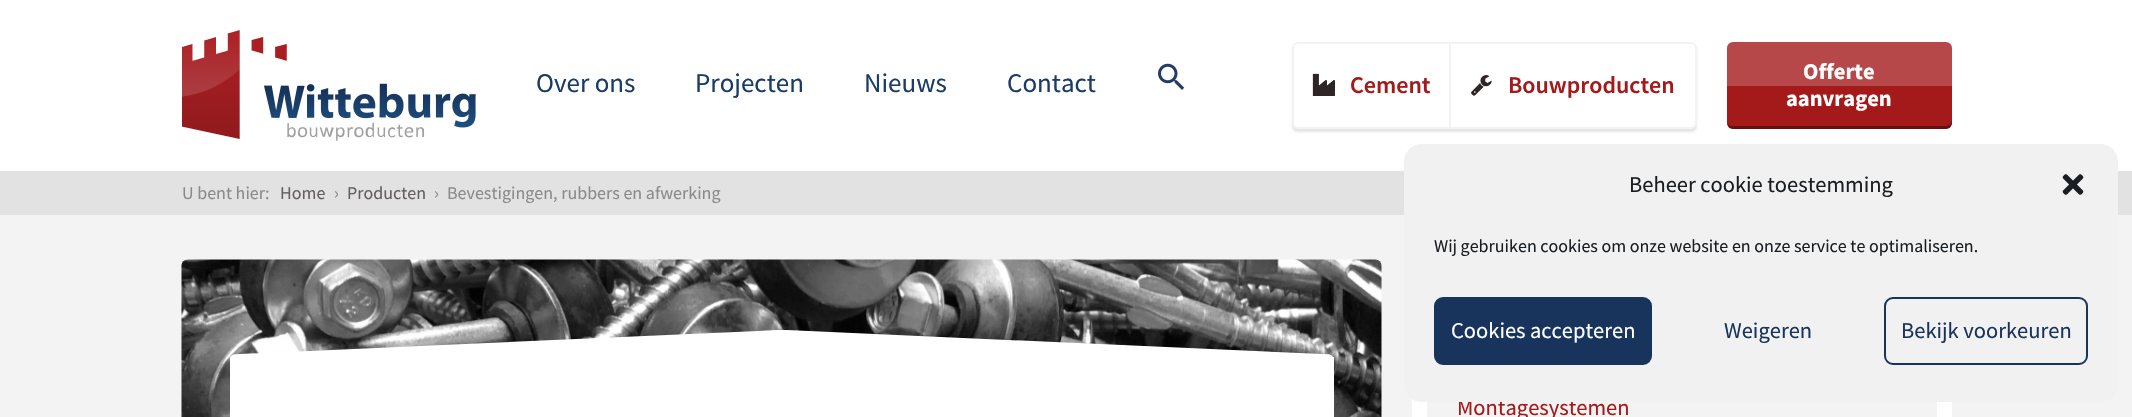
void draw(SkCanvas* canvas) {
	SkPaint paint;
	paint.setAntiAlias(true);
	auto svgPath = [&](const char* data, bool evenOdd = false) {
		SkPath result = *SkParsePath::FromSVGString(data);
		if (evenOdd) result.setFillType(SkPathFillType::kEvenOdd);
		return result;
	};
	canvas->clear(0xffffffff);
	canvas->drawImageRect(SkImages::DeferredFromEncodedData(SkData::MakeFromFileName("img1.png")), SkRect::MakeXYWH(182, 30, 294, 111), SkSamplingOptions());
	SkFont f1(fontMgr->matchFamilyStyle("Source Sans Pro", SkFontStyle::Normal()), 27);
	f1.setSubpixel(true);
	paint.setColor(0xff1a3c68);
	canvas->drawString("Over ons", 536, 92, f1, paint);
	canvas->drawString("Projecten", 695, 92, f1, paint);
	canvas->drawString("Nieuws", 864, 92, f1, paint);
	canvas->drawString("Contact", 1007, 92, f1, paint);
	canvas->drawImageRect(SkImages::DeferredFromEncodedData(SkData::MakeFromFileName("img2.png")), SkRect::MakeXYWH(1158, 63, 27, 27), SkSamplingOptions());
	paint.setColor(0x1a000000);
	paint.setMaskFilter(SkMaskFilter::MakeBlur(kNormal_SkBlurStyle, 1));
	canvas->drawRoundRect(SkRect::MakeXYWH(1292, 45, 405, 87), 6, 6, paint);
	paint.setMaskFilter(nullptr);
	paint.setColor(0xffffffff);
	canvas->drawRoundRect(SkRect::MakeXYWH(1293, 43, 403, 85), 5, 5, paint);
	paint.setStroke(true);
	paint.setStrokeWidth(2);
	paint.setColor(0xfff4f3f3);
	canvas->drawRoundRect(SkRect::MakeXYWH(1293, 43, 403, 85), 5, 5, paint);
	paint.setStroke(false);
	canvas->drawRect(SkRect::MakeXYWH(1449, 44, 2, 84), paint);
	canvas->drawImageRect(SkImages::DeferredFromEncodedData(SkData::MakeFromFileName("img3.png")), SkRect::MakeXYWH(1312, 73, 23, 23), SkSamplingOptions());
	SkFont f2(fontMgr->matchFamilyStyle("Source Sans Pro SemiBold", SkFontStyle(600, SkFontStyle::kNormal_Width, SkFontStyle::kUpright_Slant)), 24);
	f2.setSubpixel(true);
	paint.setColor(0xffa41a1b);
	canvas->drawString("Cement", 1350, 93, f2, paint);
	canvas->drawImageRect(SkImages::DeferredFromEncodedData(SkData::MakeFromFileName("img4.png")), SkRect::MakeXYWH(1471, 75, 21, 21), SkSamplingOptions());
	canvas->drawString("Bouwproducten", 1508, 93, f2, paint);
	canvas->drawRoundRect(SkRect::MakeXYWH(1727, 42, 225, 87), 6, 6, paint);
	paint.setColor(0x66000000);
	canvas->drawPath(svgPath("M1727 123C1727 126 1730 129 1733 129H1946C1949 129 1952 126 1952 123V120C1952 123 1949 126 1946 126H1732C1730 126 1728 125 1727 123Z"), paint);
	paint.setColor(0x33ffffff);
	canvas->drawPath(svgPath("M1733 42H1946C1949.5 42 1952 44.5 1952 48V86H1727V48C1727 44.5 1729.5 42 1733 42Z"), paint);
	SkFont f3(fontMgr->matchFamilyStyle("Source Sans Pro", SkFontStyle::Bold()), 22.5);
	f3.setSubpixel(true);
	paint.setColor(0xffffffff);
	canvas->drawString("Offerte", 1803, 79, f3, paint);
	canvas->drawString("aanvragen", 1786, 106, f3, paint);
	paint.setColor(0xffe3e2e2);
	canvas->drawRect(SkRect::MakeXYWH(0, 171, 2132, 44), paint);
	SkFont f4(fontMgr->matchFamilyStyle("Source Sans Pro", SkFontStyle::Normal()), 18);
	f4.setSubpixel(true);
	paint.setColor(0xff8a8a8a);
	canvas->drawString("U bent hier:", 182, 199, f4, paint);
	paint.setColor(0xff635d5d);
	canvas->drawString("Home", 280, 199, f4, paint);
	paint.setColor(0xff8a8a8a);
	canvas->drawString("›", 334, 199, f4, paint);
	paint.setColor(0xff635d5d);
	canvas->drawString("Producten", 347, 199, f4, paint);
	paint.setColor(0xff8a8a8a);
	canvas->drawString("›", 434, 199, f4, paint);
	canvas->drawString("Bevestigingen, rubbers en afwerking", 447, 199, f4, paint);
	paint.setColor(0xfff4f3f3);
	canvas->drawRect(SkRect::MakeXYWH(0, 215, 2132, 202), paint);
	canvas->drawImageRect(SkImages::DeferredFromEncodedData(SkData::MakeFromFileName("img5.png")), SkRect::MakeXYWH(181, 259, 1201, 158), SkSamplingOptions());
	canvas->drawImageRect(SkImages::DeferredFromEncodedData(SkData::MakeFromFileName("img6.png")), SkRect::MakeXYWH(230, 330, 1103, 27), SkSamplingOptions());
	paint.setColor(0xffffffff);
	canvas->drawRect(SkRect::MakeXYWH(230, 357, 1104, 60), paint);
	canvas->drawRect(SkRect::MakeXYWH(1412, 399, 540, 18), paint);
	paint.setColor(0xfff4f3f3);
	canvas->drawRect(SkRect::MakeXYWH(1427, 402, 510, 15), paint);
	SkFont f5(fontMgr->matchFamilyStyle("Source Sans Pro", SkFontStyle::Normal()), 22.5);
	f5.setSubpixel(true);
	paint.setColor(0xffa41a1b);
	canvas->drawString("Montagesystemen", 1457, 415, f5, paint);
	paint.setColor(0xfff1f1f1);
	canvas->drawRoundRect(SkRect::MakeXYWH(1404, 144, 714, 258), 18, 18, paint);
	paint.setColor(0xff191e23);
	canvas->drawString("Beheer cookie toestemming", 1629, 192, f5, paint);
	canvas->drawImageRect(SkImages::DeferredFromEncodedData(SkData::MakeFromFileName("img7.png")), SkRect::MakeXYWH(2062, 174, 22, 21), SkSamplingOptions());
	canvas->drawString("Wij gebruiken cookies om onze website en onze service te optimaliseren.", 1434, 252, f4, paint);
	paint.setColor(0xff18345d);
	canvas->drawRoundRect(SkRect::MakeXYWH(1435, 298, 216, 66), 8, 8, paint);
	paint.setStroke(true);
	canvas->drawRoundRect(SkRect::MakeXYWH(1435, 298, 216, 66), 8, 8, paint);
	paint.setStroke(false);
	paint.setColor(0xffffffff);
	canvas->drawString("Cookies accepteren", 1451, 338, f5, paint);
	paint.setColor(0xff18345d);
	canvas->drawString("Weigeren", 1724, 338, f5, paint);
	paint.setStroke(true);
	canvas->drawRoundRect(SkRect::MakeXYWH(1885, 298, 202, 66), 8, 8, paint);
	paint.setStroke(false);
	canvas->drawString("Bekijk voorkeuren", 1901, 338, f5, paint);
}
